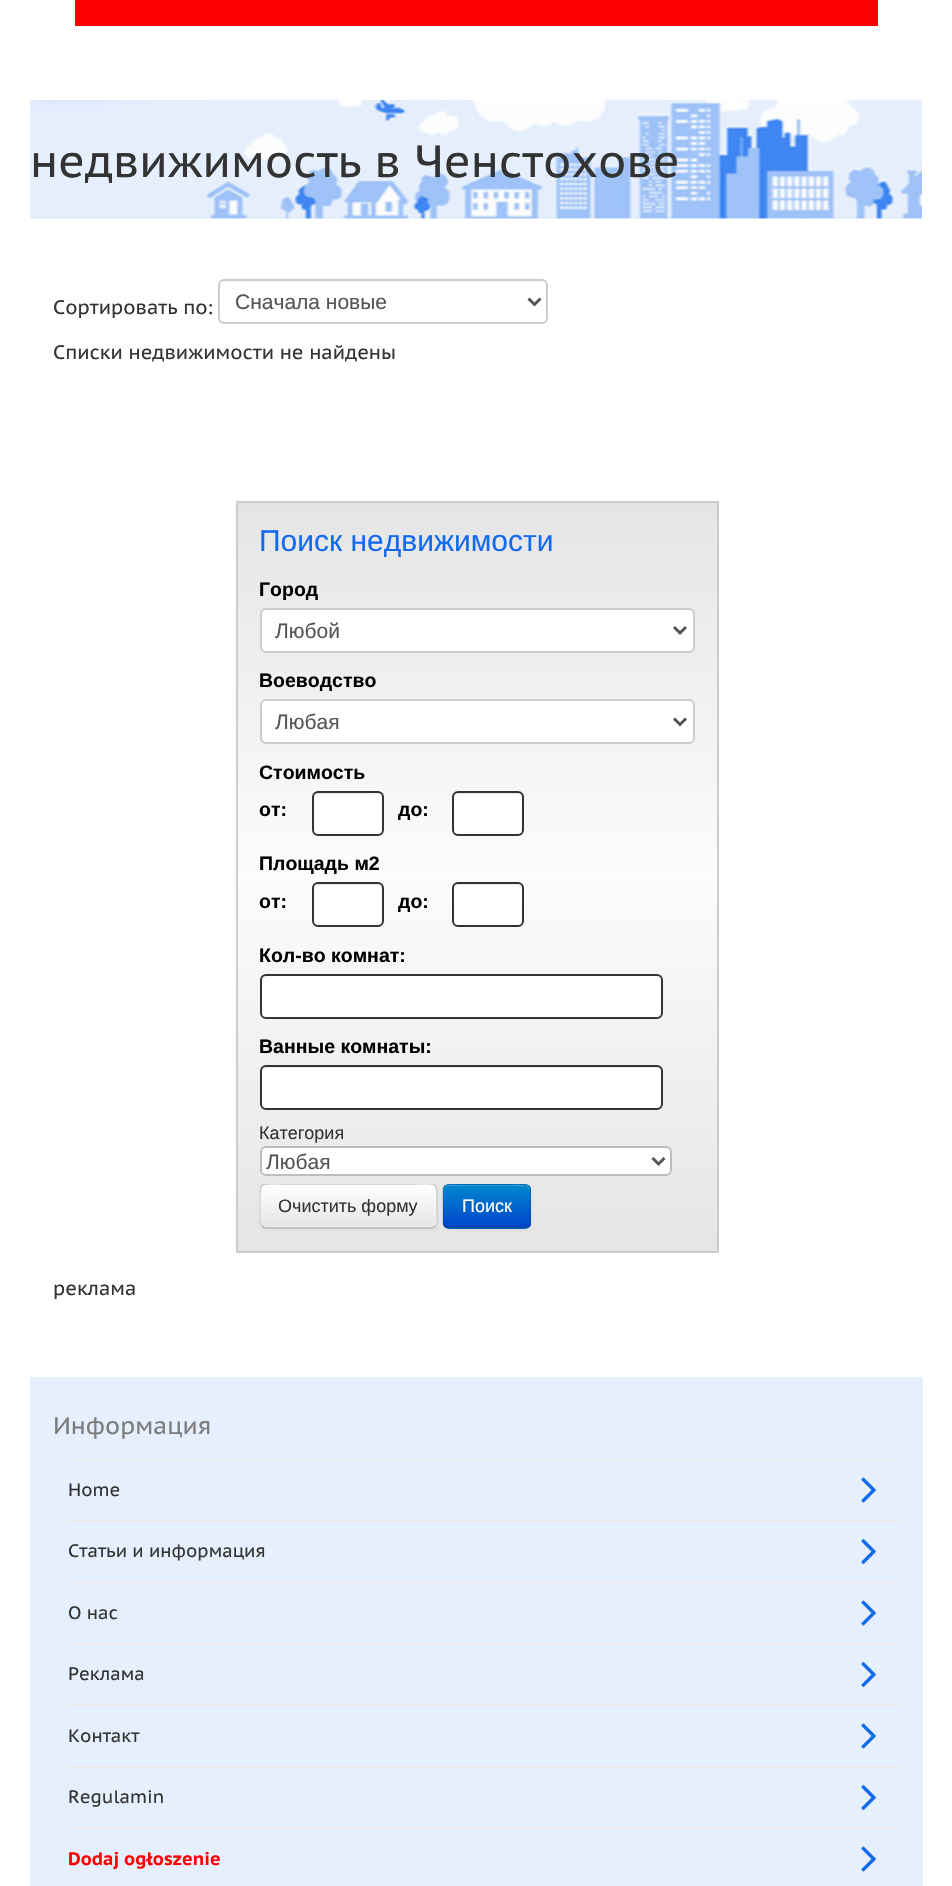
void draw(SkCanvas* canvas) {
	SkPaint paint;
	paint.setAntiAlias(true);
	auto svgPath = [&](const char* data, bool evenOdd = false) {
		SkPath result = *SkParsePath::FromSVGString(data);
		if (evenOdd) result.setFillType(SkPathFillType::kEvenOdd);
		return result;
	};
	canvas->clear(0xffffffff);
	paint.setColor(0xffff0000);
	canvas->drawRect(SkRect::MakeXYWH(75, 0, 803, 26), paint);
	canvas->drawImageRect(SkImages::DeferredFromEncodedData(SkData::MakeFromFileName("img1.png")), SkRect::MakeXYWH(30, 100, 892, 119), SkSamplingOptions());
	SkFont f1(fontMgr->matchFamilyStyle("PT Sans Caption", SkFontStyle::Normal()), 45);
	f1.setSubpixel(true);
	paint.setColor(0xff333333);
	canvas->drawString("недвижимость в Ченстохове", 30, 177, f1, paint);
	SkFont f2(fontMgr->matchFamilyStyle("PT Sans Caption", SkFontStyle::Normal()), 19.5);
	f2.setSubpixel(true);
	canvas->drawString("Сортировать по:", 53, 314, f2, paint);
	paint.setStroke(true);
	paint.setStrokeWidth(2);
	paint.setColor(0xffcccccc);
	canvas->drawRoundRect(SkRect::MakeXYWH(219, 280, 328, 43), 5, 5, paint);
	paint.setStrokeWidth(3);
	paint.setColor(0xff555555);
	canvas->drawPath(svgPath("M528.5 298.5L534.5 304.5L540.5 298.5"), paint);
	SkFont f3(fontMgr->matchFamilyStyle("Liberation Sans", SkFontStyle::Normal()), 21);
	f3.setSubpixel(true);
	paint.setStroke(false);
	canvas->drawString("Сначала новые", 235, 309, f3, paint);
	paint.setColor(0xff333333);
	canvas->drawString("Списки недвижимости не найдены", 53, 359, f2, paint);
	{
		const SkColor colors[] = {0xffe5e5e5, 0xfffcfcfc, 0xffe5e5e5};
		const float stops[] = {0, 0.5, 1};
		const SkPoint ends[] = {{477, 503}, {477, 1251}};
		paint.setShader(SkGradientShader::MakeLinear(ends, colors, stops, 3, SkTileMode::kClamp));
		paint.setAlpha(255);
	}
	canvas->drawRect(SkRect::MakeXYWH(238, 503, 479, 748), paint);
	paint.setStroke(true);
	paint.setStrokeWidth(2);
	paint.setShader(nullptr);
	paint.setColor(0xffcccccc);
	canvas->drawRect(SkRect::MakeXYWH(237, 502, 481, 750), paint);
	SkFont f4(fontMgr->matchFamilyStyle("Liberation Sans", SkFontStyle::Normal()), 30);
	f4.setSubpixel(true);
	paint.setStroke(false);
	paint.setColor(0xff126aef);
	canvas->drawString("Поиск недвижимости", 259, 551, f4, paint);
	SkFont f5(fontMgr->matchFamilyStyle("Liberation Sans", SkFontStyle::Bold()), 19.5);
	f5.setSubpixel(true);
	paint.setColor(0xff000000);
	canvas->drawString("Город", 259, 596, f5, paint);
	paint.setColor(0xffffffff);
	canvas->drawRoundRect(SkRect::MakeXYWH(261, 609, 433, 43), 5, 5, paint);
	paint.setStroke(true);
	paint.setColor(0xffcccccc);
	canvas->drawRoundRect(SkRect::MakeXYWH(261, 609, 433, 43), 5, 5, paint);
	paint.setStrokeWidth(3);
	paint.setColor(0xff555555);
	canvas->drawPath(svgPath("M674 627L680 633L686 627"), paint);
	paint.setStroke(false);
	canvas->drawString("Любой", 275, 638, f3, paint);
	paint.setColor(0xff000000);
	canvas->drawString("Воеводствo", 259, 687, f5, paint);
	paint.setColor(0xffffffff);
	canvas->drawRoundRect(SkRect::MakeXYWH(261, 700, 433, 43), 5, 5, paint);
	paint.setStroke(true);
	paint.setStrokeWidth(2);
	paint.setColor(0xffcccccc);
	canvas->drawRoundRect(SkRect::MakeXYWH(261, 700, 433, 43), 5, 5, paint);
	paint.setStrokeWidth(3);
	paint.setColor(0xff555555);
	canvas->drawPath(svgPath("M674 718.5L680 724.5L686 718.5"), paint);
	paint.setStroke(false);
	canvas->drawString("Любая", 275, 729, f3, paint);
	paint.setColor(0xff000000);
	canvas->drawString("Стоимость", 259, 779, f5, paint);
	canvas->drawString("от:", 259, 816, f5, paint);
	paint.setColor(0xffffffff);
	canvas->drawRoundRect(SkRect::MakeXYWH(312, 791, 72, 45), 6, 6, paint);
	paint.setColor(0xffececec);
	canvas->drawPath(svgPath("M318 794H368C370 794 381 792 382 797V832C384 830 383 826 383 824V813C383 787 386 792 358 792H329C323 792 314 790 314 798C314 796 316 794 318 794Z"), paint);
	paint.setStroke(true);
	paint.setStrokeWidth(2);
	paint.setColor(0xff333333);
	canvas->drawRoundRect(SkRect::MakeXYWH(313, 792, 70, 43), 5, 5, paint);
	paint.setStroke(false);
	paint.setColor(0xff000000);
	canvas->drawString("до:", 398, 816, f5, paint);
	paint.setColor(0xffffffff);
	canvas->drawRoundRect(SkRect::MakeXYWH(452, 791, 72, 45), 6, 6, paint);
	paint.setColor(0xffececec);
	canvas->drawPath(svgPath("M458 794H518C520 794 522 796 522 798C522 790 513 792 507 792H468C462 792 453 790 453 798C453 796 455 794 458 794Z"), paint);
	paint.setStroke(true);
	paint.setColor(0xff333333);
	canvas->drawRoundRect(SkRect::MakeXYWH(453, 792, 70, 43), 5, 5, paint);
	paint.setStroke(false);
	paint.setColor(0xff000000);
	canvas->drawString("Площадь м2", 259, 870, f5, paint);
	canvas->drawString("от:", 259, 908, f5, paint);
	paint.setColor(0xffffffff);
	canvas->drawRoundRect(SkRect::MakeXYWH(312, 882, 72, 45), 6, 6, paint);
	paint.setColor(0xffececec);
	canvas->drawPath(svgPath("M318 885H378C380 885 382 887 382 890V922L381 925C384 922 383 918 383 916V905C383 879 386 884 358 884H329C323 884 314 882 314 890C314 887 316 885 318 885Z"), paint);
	paint.setStroke(true);
	paint.setColor(0xff333333);
	canvas->drawRoundRect(SkRect::MakeXYWH(313, 883, 70, 43), 5, 5, paint);
	paint.setStroke(false);
	paint.setColor(0xff000000);
	canvas->drawString("до:", 398, 908, f5, paint);
	paint.setColor(0xffffffff);
	canvas->drawRoundRect(SkRect::MakeXYWH(452, 882, 72, 45), 6, 6, paint);
	paint.setColor(0xffececec);
	canvas->drawPath(svgPath("M458 885H518C520 885 522 887 522 890C522 882 513 884 507 884H468C462 884 453 882 453 890C453 887 455 885 458 885Z"), paint);
	paint.setStroke(true);
	paint.setColor(0xff333333);
	canvas->drawRoundRect(SkRect::MakeXYWH(453, 883, 70, 43), 5, 5, paint);
	paint.setStroke(false);
	paint.setColor(0xff000000);
	canvas->drawString("Кол-во комнат:", 259, 962, f5, paint);
	paint.setColor(0xffffffff);
	canvas->drawRoundRect(SkRect::MakeXYWH(260, 974, 403, 45), 6, 6, paint);
	paint.setColor(0xffececec);
	canvas->drawPath(svgPath("M266 976H657C659 976 662 979 662 981V980C662 977 660 975 657 975H266C263 975 261 977 261 980V981C261 979 263 976 266 976Z"), paint);
	paint.setStroke(true);
	paint.setColor(0xff333333);
	canvas->drawRoundRect(SkRect::MakeXYWH(261, 975, 401, 43), 5, 5, paint);
	paint.setStroke(false);
	paint.setColor(0xff000000);
	canvas->drawString("Ванные комнаты:", 259, 1053, f5, paint);
	paint.setColor(0xffffffff);
	canvas->drawRoundRect(SkRect::MakeXYWH(260, 1065, 403, 45), 6, 6, paint);
	paint.setColor(0xffececec);
	canvas->drawPath(svgPath("M266 1068H657C659 1068 662 1070 662 1072C662 1069 660 1067 657 1067H266C263 1067 261 1069 261 1072C261 1070 263 1068 266 1068Z"), paint);
	paint.setStroke(true);
	paint.setColor(0xff333333);
	canvas->drawRoundRect(SkRect::MakeXYWH(261, 1066, 401, 43), 5, 5, paint);
	SkFont f6(fontMgr->matchFamilyStyle("Liberation Sans", SkFontStyle::Normal()), 18);
	f6.setSubpixel(true);
	paint.setStroke(false);
	canvas->drawString("Категория", 259, 1139, f6, paint);
	paint.setColor(0xffffffff);
	canvas->drawRoundRect(SkRect::MakeXYWH(261, 1147, 410, 28), 5, 5, paint);
	paint.setStroke(true);
	paint.setColor(0xffbebebe);
	canvas->drawRoundRect(SkRect::MakeXYWH(261, 1147, 410, 28), 5, 5, paint);
	paint.setStrokeWidth(3);
	paint.setColor(0xff555555);
	canvas->drawPath(svgPath("M652.5 1158L658.5 1164L664.5 1158"), paint);
	paint.setStroke(false);
	canvas->drawString("Любая", 266, 1169, f3, paint);
	paint.setColor(0x0d000000);
	paint.setMaskFilter(SkMaskFilter::MakeBlur(kNormal_SkBlurStyle, 1.5));
	canvas->drawRoundRect(SkRect::MakeXYWH(260, 1185, 178, 45), 6, 6, paint);
	paint.setMaskFilter(nullptr);
	paint.setColor(0xfff5f5f5);
	canvas->drawRoundRect(SkRect::MakeXYWH(260, 1184, 178, 45), 6, 6, paint);
	canvas->save();
	canvas->clipPath(svgPath("M266 1184H432C435.5 1184 438 1186.5 438 1190V1223C438 1226.5 435.5 1229 432 1229H266C262.5 1229 260 1226.5 260 1223V1190C260 1186.5 262.5 1184 266 1184Z"), true);
	{
		const SkColor colors[] = {0xffffffff, 0xffe6e6e6};
		const float stops[] = {0, 1};
		const SkPoint ends[] = {{349, 1185}, {349, 1227}};
		paint.setShader(SkGradientShader::MakeLinear(ends, colors, stops, 2, SkTileMode::kClamp));
		paint.setAlpha(255);
	}
	canvas->drawRect(SkRect::MakeXYWH(260, 1185, 178, 42), paint);
	canvas->restore();
	paint.setShader(nullptr);
	paint.setColor(0x33ffffff);
	canvas->drawPath(svgPath("M266 1186H432C438 1186 436 1200 436 1202V1225C437 1224 437 1223 437 1222V1190C437 1187 435 1185 432 1185H266C263 1185 261 1187 261 1190V1191C261 1189 263 1186 266 1186Z"), paint);
	paint.setStroke(true);
	paint.setStrokeWidth(1.5);
	paint.setColor(0xffb3b3b3);
	canvas->drawPath(svgPath("M435.5 1226C434.5 1227 433.5 1228 432 1228H265.5C264 1228 263 1227 262 1226"), paint);
	canvas->save();
	canvas->clipRect(SkRect::MakeXYWH(260, 1184, 435, 45));
	paint.setColor(0xffcccccc);
	canvas->drawPath(svgPath("M262 1226C258.5 1223 260 1215 260 1211.5C260 1177.5 255.5 1184 293 1184H404C442 1184 437 1177.5 437 1211.5C437 1215 439 1223 435.5 1226"), paint);
	canvas->restore();
	paint.setStroke(false);
	paint.setColor(0xff333333);
	canvas->drawString("Очистить форму", 278, 1212, f6, paint);
	paint.setColor(0x0d000000);
	paint.setMaskFilter(SkMaskFilter::MakeBlur(kNormal_SkBlurStyle, 1.5));
	canvas->drawRoundRect(SkRect::MakeXYWH(443, 1185, 88, 45), 6, 6, paint);
	paint.setMaskFilter(nullptr);
	paint.setColor(0xff006dcc);
	canvas->drawRoundRect(SkRect::MakeXYWH(443, 1184, 88, 45), 6, 6, paint);
	canvas->save();
	canvas->clipPath(svgPath("M449 1184H525C528.5 1184 531 1186.5 531 1190V1223C531 1226.5 528.5 1229 525 1229H449C445.5 1229 443 1226.5 443 1223V1190C443 1186.5 445.5 1184 449 1184Z"), true);
	{
		const SkColor colors[] = {0xff0088cc, 0xff0044cc};
		const float stops[] = {0, 1};
		const SkPoint ends[] = {{487, 1185}, {487, 1227}};
		paint.setShader(SkGradientShader::MakeLinear(ends, colors, stops, 2, SkTileMode::kClamp));
		paint.setAlpha(255);
	}
	canvas->drawRect(SkRect::MakeXYWH(443, 1185, 88, 42), paint);
	canvas->restore();
	paint.setShader(nullptr);
	paint.setColor(0x33ffffff);
	canvas->drawPath(svgPath("M448 1186H525C527 1186 530 1189 530 1191C530 1182 518 1185 512 1185H462C456 1185 444 1182 444 1191C444 1189 446 1186 448 1186Z"), paint);
	paint.setStroke(true);
	paint.setColor(0x40000000);
	canvas->drawPath(svgPath("M528.5 1226L525.5 1227.5H448L445 1226"), paint);
	canvas->save();
	canvas->clipRect(SkRect::MakeXYWH(260, 1184, 435, 45));
	paint.setColor(0x1a000000);
	canvas->drawPath(svgPath("M445 1226C442.5 1224 443 1220 443 1217V1206C443 1183.5 439 1184 461 1184H512C534.5 1184 530 1183.5 530 1206V1217C530 1220 531 1224 528.5 1226"), paint);
	canvas->restore();
	paint.setStroke(false);
	paint.setColor(0xffffffff);
	canvas->drawString("Поиск", 462, 1212, f6, paint);
	paint.setColor(0xff333333);
	canvas->drawString("реклама", 53, 1295, f2, paint);
	paint.setColor(0xffe6effe);
	canvas->drawRect(SkRect::MakeXYWH(30, 1377, 893, 509), paint);
	SkFont f7(fontMgr->matchFamilyStyle("PT Sans Caption", SkFontStyle::Normal()), 24);
	f7.setSubpixel(true);
	paint.setColor(0xff7c7c7c);
	canvas->drawString("Информация", 53, 1434, f7, paint);
	paint.setColor(0xffebebeb);
	canvas->drawRect(SkRect::MakeXYWH(68, 1458, 832, 2), paint);
	SkFont f8(fontMgr->matchFamilyStyle("PT Sans Caption", SkFontStyle::Normal()), 18);
	f8.setSubpixel(true);
	paint.setColor(0xff333333);
	canvas->drawString("Home", 68, 1496, f8, paint);
	canvas->drawImageRect(SkImages::DeferredFromEncodedData(SkData::MakeFromFileName("img2.png")), SkRect::MakeXYWH(861, 1477, 15, 26), SkSamplingOptions());
	paint.setColor(0xffebebeb);
	canvas->drawRect(SkRect::MakeXYWH(68, 1520, 832, 2), paint);
	paint.setColor(0xff333333);
	canvas->drawString("Статьи и информация", 68, 1557, f8, paint);
	canvas->drawImageRect(SkImages::DeferredFromEncodedData(SkData::MakeFromFileName("img3.png")), SkRect::MakeXYWH(861, 1539, 15, 25), SkSamplingOptions());
	paint.setColor(0xffebebeb);
	canvas->drawRect(SkRect::MakeXYWH(68, 1581, 832, 2), paint);
	paint.setColor(0xff333333);
	canvas->drawString("О нас", 68, 1619, f8, paint);
	canvas->drawImageRect(SkImages::DeferredFromEncodedData(SkData::MakeFromFileName("img2.png")), SkRect::MakeXYWH(861, 1600, 15, 26), SkSamplingOptions());
	paint.setColor(0xffebebeb);
	canvas->drawRect(SkRect::MakeXYWH(68, 1643, 832, 2), paint);
	paint.setColor(0xff333333);
	canvas->drawString("Реклама", 68, 1680, f8, paint);
	canvas->drawImageRect(SkImages::DeferredFromEncodedData(SkData::MakeFromFileName("img3.png")), SkRect::MakeXYWH(861, 1662, 15, 25), SkSamplingOptions());
	paint.setColor(0xffebebeb);
	canvas->drawRect(SkRect::MakeXYWH(68, 1704, 832, 2), paint);
	paint.setColor(0xff333333);
	canvas->drawString("Контакт", 68, 1742, f8, paint);
	canvas->drawImageRect(SkImages::DeferredFromEncodedData(SkData::MakeFromFileName("img2.png")), SkRect::MakeXYWH(861, 1723, 15, 26), SkSamplingOptions());
	paint.setColor(0xffebebeb);
	canvas->drawRect(SkRect::MakeXYWH(68, 1766, 832, 2), paint);
	paint.setColor(0xff333333);
	canvas->drawString("Regulamin", 68, 1803, f8, paint);
	canvas->drawImageRect(SkImages::DeferredFromEncodedData(SkData::MakeFromFileName("img3.png")), SkRect::MakeXYWH(861, 1785, 15, 25), SkSamplingOptions());
	paint.setColor(0xffebebeb);
	canvas->drawRect(SkRect::MakeXYWH(68, 1827, 832, 2), paint);
	SkFont f9(fontMgr->matchFamilyStyle("PT Sans Caption", SkFontStyle::Bold()), 18);
	f9.setSubpixel(true);
	paint.setColor(0xffff0000);
	canvas->drawString("Dodaj ogłoszenie", 68, 1865, f9, paint);
	canvas->drawImageRect(SkImages::DeferredFromEncodedData(SkData::MakeFromFileName("img2.png")), SkRect::MakeXYWH(861, 1846, 15, 26), SkSamplingOptions());
}
